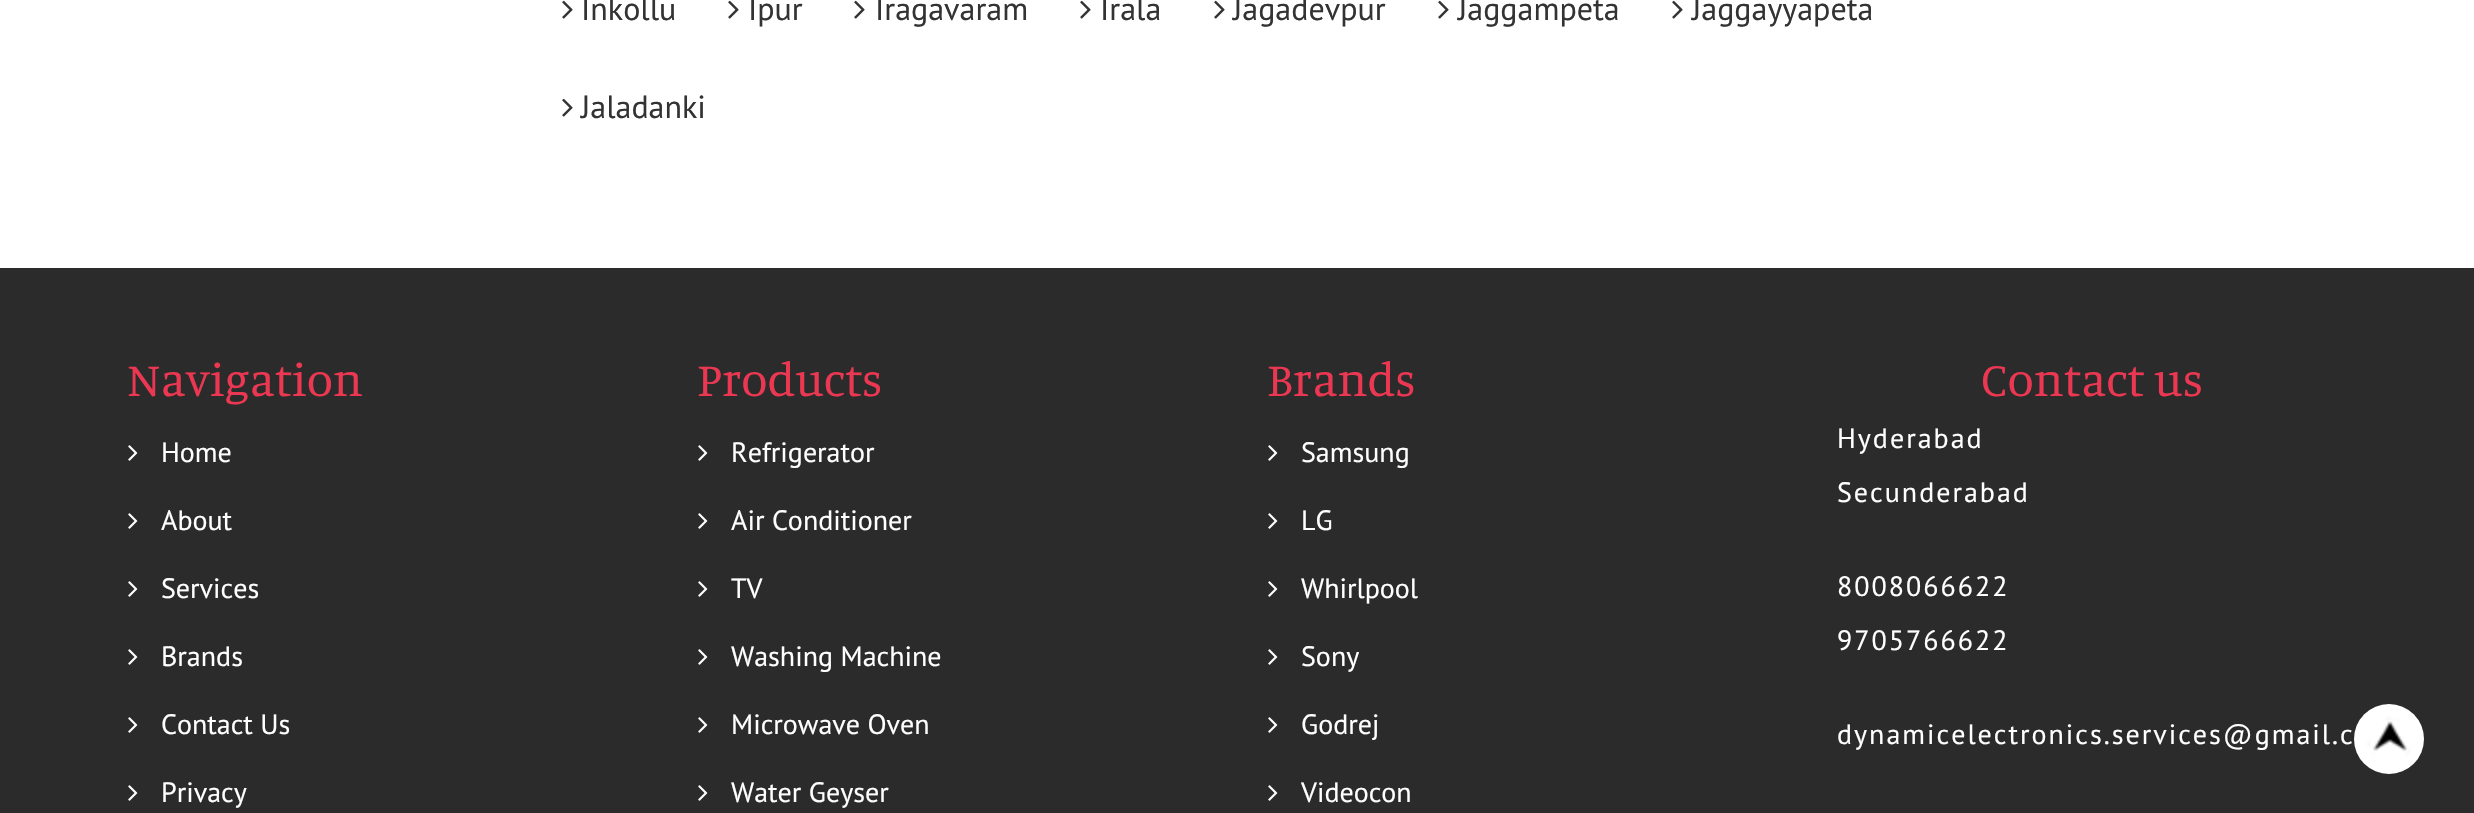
void draw(SkCanvas* canvas) {
	SkPaint paint;
	paint.setAntiAlias(true);
	auto spacedText = [&](const char* s, float x, float y, const SkFont& font, const SkPaint& ink, float letter, float word) {
		std::vector<SkGlyphID> glyphs(font.countText(s, strlen(s), SkTextEncoding::kUTF8));
		std::vector<float> xs(glyphs.size());
		font.textToGlyphs(s, strlen(s), SkTextEncoding::kUTF8, glyphs);
		font.getXPos(glyphs, xs, x);
		float extra = 0;
		for (size_t i = 0; i < glyphs.size(); i++) {
			xs[i] += extra;
			extra += letter + word * (glyphs[i] == font.unicharToGlyph(' '));
		}
		canvas->drawTextBlob(SkTextBlob::MakeFromPosHGlyphs(glyphs, xs, y, font), 0, 0, ink);
	};
	canvas->clear(0xffffffff);
	canvas->drawImageRect(SkImages::DeferredFromEncodedData(SkData::MakeFromFileName("img1.png")), SkRect::MakeXYWH(562, 0, 11, 19), SkSamplingOptions());
	SkFont f1(fontMgr->matchFamilyStyle("PT Sans", SkFontStyle::Normal()), 32);
	f1.setSubpixel(true);
	paint.setColor(0xff333333);
	canvas->drawString("Inkollu", 581, 20, f1, paint);
	canvas->drawImageRect(SkImages::DeferredFromEncodedData(SkData::MakeFromFileName("img1.png")), SkRect::MakeXYWH(728, 0, 11, 19), SkSamplingOptions());
	canvas->drawString("Ipur", 748, 20, f1, paint);
	canvas->drawImageRect(SkImages::DeferredFromEncodedData(SkData::MakeFromFileName("img1.png")), SkRect::MakeXYWH(854, 0, 11, 19), SkSamplingOptions());
	canvas->drawString("Iragavaram", 875, 20, f1, paint);
	canvas->drawImageRect(SkImages::DeferredFromEncodedData(SkData::MakeFromFileName("img1.png")), SkRect::MakeXYWH(1080, 0, 11, 19), SkSamplingOptions());
	canvas->drawString("Irala", 1100, 20, f1, paint);
	canvas->drawImageRect(SkImages::DeferredFromEncodedData(SkData::MakeFromFileName("img1.png")), SkRect::MakeXYWH(1214, 0, 11, 19), SkSamplingOptions());
	canvas->drawString("Jagadevpur", 1233, 20, f1, paint);
	canvas->drawImageRect(SkImages::DeferredFromEncodedData(SkData::MakeFromFileName("img1.png")), SkRect::MakeXYWH(1438, 0, 11, 19), SkSamplingOptions());
	canvas->drawString("Jaggampeta", 1458, 20, f1, paint);
	canvas->drawImageRect(SkImages::DeferredFromEncodedData(SkData::MakeFromFileName("img1.png")), SkRect::MakeXYWH(1672, 0, 11, 19), SkSamplingOptions());
	canvas->drawString("Jaggayyapeta", 1692, 20, f1, paint);
	canvas->drawImageRect(SkImages::DeferredFromEncodedData(SkData::MakeFromFileName("img1.png")), SkRect::MakeXYWH(562, 98, 11, 19), SkSamplingOptions());
	canvas->drawString("Jaladanki", 581, 118, f1, paint);
	paint.setColor(0xff2b2b2b);
	canvas->drawRect(SkRect::MakeXYWH(0, 268, 2474, 545), paint);
	SkFont f2(fontMgr->matchFamilyStyle("Manuale", SkFontStyle::Normal()), 48);
	f2.setSubpixel(true);
	paint.setColor(0xffeb3751);
	canvas->drawString("Navigation", 127, 396, f2, paint);
	canvas->drawImageRect(SkImages::DeferredFromEncodedData(SkData::MakeFromFileName("img2.png")), SkRect::MakeXYWH(128, 445, 10, 16), SkSamplingOptions());
	SkFont f3(fontMgr->matchFamilyStyle("PT Sans", SkFontStyle::Normal()), 28);
	f3.setSubpixel(true);
	paint.setColor(0xffffffff);
	canvas->drawString("Home", 161, 462, f3, paint);
	canvas->drawImageRect(SkImages::DeferredFromEncodedData(SkData::MakeFromFileName("img2.png")), SkRect::MakeXYWH(128, 513, 10, 16), SkSamplingOptions());
	canvas->drawString("About", 161, 530, f3, paint);
	canvas->drawImageRect(SkImages::DeferredFromEncodedData(SkData::MakeFromFileName("img2.png")), SkRect::MakeXYWH(128, 581, 10, 16), SkSamplingOptions());
	canvas->drawString("Services", 161, 598, f3, paint);
	canvas->drawImageRect(SkImages::DeferredFromEncodedData(SkData::MakeFromFileName("img2.png")), SkRect::MakeXYWH(128, 649, 10, 16), SkSamplingOptions());
	canvas->drawString("Brands", 161, 666, f3, paint);
	canvas->drawImageRect(SkImages::DeferredFromEncodedData(SkData::MakeFromFileName("img2.png")), SkRect::MakeXYWH(128, 717, 10, 16), SkSamplingOptions());
	canvas->drawString("Contact Us", 161, 734, f3, paint);
	canvas->drawImageRect(SkImages::DeferredFromEncodedData(SkData::MakeFromFileName("img2.png")), SkRect::MakeXYWH(128, 785, 10, 16), SkSamplingOptions());
	canvas->drawString("Privacy", 161, 802, f3, paint);
	paint.setColor(0xffeb3751);
	canvas->drawString("Products", 697, 396, f2, paint);
	canvas->drawImageRect(SkImages::DeferredFromEncodedData(SkData::MakeFromFileName("img2.png")), SkRect::MakeXYWH(698, 445, 10, 16), SkSamplingOptions());
	paint.setColor(0xffffffff);
	canvas->drawString("Refrigerator", 731, 462, f3, paint);
	canvas->drawImageRect(SkImages::DeferredFromEncodedData(SkData::MakeFromFileName("img2.png")), SkRect::MakeXYWH(698, 513, 10, 16), SkSamplingOptions());
	canvas->drawString("Air Conditioner", 731, 530, f3, paint);
	canvas->drawImageRect(SkImages::DeferredFromEncodedData(SkData::MakeFromFileName("img2.png")), SkRect::MakeXYWH(698, 581, 10, 16), SkSamplingOptions());
	canvas->drawString("TV", 731, 598, f3, paint);
	canvas->drawImageRect(SkImages::DeferredFromEncodedData(SkData::MakeFromFileName("img2.png")), SkRect::MakeXYWH(698, 649, 10, 16), SkSamplingOptions());
	canvas->drawString("Washing Machine", 731, 666, f3, paint);
	canvas->drawImageRect(SkImages::DeferredFromEncodedData(SkData::MakeFromFileName("img2.png")), SkRect::MakeXYWH(698, 717, 10, 16), SkSamplingOptions());
	canvas->drawString("Microwave Oven", 731, 734, f3, paint);
	canvas->drawImageRect(SkImages::DeferredFromEncodedData(SkData::MakeFromFileName("img2.png")), SkRect::MakeXYWH(698, 785, 10, 16), SkSamplingOptions());
	canvas->drawString("Water Geyser", 731, 802, f3, paint);
	paint.setColor(0xffeb3751);
	canvas->drawString("Brands", 1267, 396, f2, paint);
	canvas->drawImageRect(SkImages::DeferredFromEncodedData(SkData::MakeFromFileName("img2.png")), SkRect::MakeXYWH(1268, 445, 10, 16), SkSamplingOptions());
	paint.setColor(0xffffffff);
	canvas->drawString("Samsung", 1301, 462, f3, paint);
	canvas->drawImageRect(SkImages::DeferredFromEncodedData(SkData::MakeFromFileName("img2.png")), SkRect::MakeXYWH(1268, 513, 10, 16), SkSamplingOptions());
	canvas->drawString("LG", 1301, 530, f3, paint);
	canvas->drawImageRect(SkImages::DeferredFromEncodedData(SkData::MakeFromFileName("img2.png")), SkRect::MakeXYWH(1268, 581, 10, 16), SkSamplingOptions());
	canvas->drawString("Whirlpool", 1301, 598, f3, paint);
	canvas->drawImageRect(SkImages::DeferredFromEncodedData(SkData::MakeFromFileName("img2.png")), SkRect::MakeXYWH(1268, 649, 10, 16), SkSamplingOptions());
	canvas->drawString("Sony", 1301, 666, f3, paint);
	canvas->drawImageRect(SkImages::DeferredFromEncodedData(SkData::MakeFromFileName("img2.png")), SkRect::MakeXYWH(1268, 717, 10, 16), SkSamplingOptions());
	canvas->drawString("Godrej", 1301, 734, f3, paint);
	canvas->drawImageRect(SkImages::DeferredFromEncodedData(SkData::MakeFromFileName("img2.png")), SkRect::MakeXYWH(1268, 785, 10, 16), SkSamplingOptions());
	canvas->drawString("Videocon", 1301, 802, f3, paint);
	paint.setColor(0xffeb3751);
	canvas->drawString("Contact us", 1981, 396, f2, paint);
	paint.setColor(0xffffffff);
	spacedText("Hyderabad", 1837, 448, f3, paint, 2, 0);
	spacedText("Secunderabad", 1837, 502, f3, paint, 2, 0);
	spacedText("8008066622", 1837, 596, f3, paint, 2, 0);
	spacedText("9705766622", 1837, 650, f3, paint, 2, 0);
	spacedText("dynamicelectronics.services@gmail.c", 1837, 744, f3, paint, 2, 0);
	canvas->drawImageRect(SkImages::DeferredFromEncodedData(SkData::MakeFromFileName("img3.png")), SkRect::MakeXYWH(2354, 704, 70, 70), SkSamplingOptions());
}
